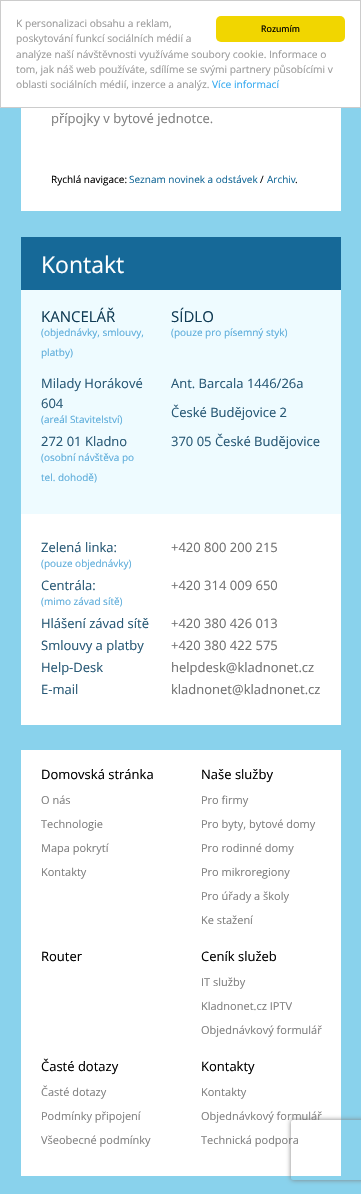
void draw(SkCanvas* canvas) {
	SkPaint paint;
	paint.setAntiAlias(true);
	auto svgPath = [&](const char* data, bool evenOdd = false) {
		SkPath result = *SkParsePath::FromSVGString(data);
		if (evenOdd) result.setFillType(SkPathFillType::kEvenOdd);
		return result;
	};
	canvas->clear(0xff89d2ec);
	paint.setColor(0xffffffff);
	canvas->drawRect(SkRect::MakeXYWH(0.5, 0.5, 360, 107), paint);
	paint.setStroke(true);
	paint.setStrokeWidth(1);
	paint.setColor(0xffcccccc);
	canvas->drawRect(SkRect::MakeXYWH(0.5, 0.5, 360, 107), paint);
	SkFont f1(fontMgr->matchFamilyStyle("Open Sans", SkFontStyle::Normal()), 10.2);
	f1.setSubpixel(true);
	paint.setStroke(false);
	paint.setColor(0xff999999);
	canvas->drawString("K personalizaci obsahu a reklam,", 16, 27, f1, paint);
	canvas->drawString("poskytování funkcí sociálních médií a", 16, 42, f1, paint);
	canvas->drawString("analýze naší návštěvnosti využíváme soubory cookie. Informace o", 16, 58, f1, paint);
	canvas->drawString("tom, jak náš web používáte, sdílíme se svými partnery působícími v", 16, 73, f1, paint);
	canvas->drawString("oblasti sociálních médií, inzerce a analýz.", 16, 88, f1, paint);
	paint.setColor(0xff31a8f0);
	canvas->drawString("Více informací", 212, 88, f1, paint);
	paint.setColor(0xfff1d600);
	canvas->drawRoundRect(SkRect::MakeXYWH(216, 16, 129, 26), 5, 5, paint);
	SkFont f2(fontMgr->matchFamilyStyle("Carlito", SkFontStyle::Normal()), 10.2);
	f2.setSubpixel(true);
	paint.setColor(0xff000000);
	canvas->drawString("Rozumím", 261, 32, f2, paint);
	paint.setColor(0xffffffff);
	canvas->drawRect(SkRect::MakeXYWH(21, 108, 320, 103), paint);
	SkFont f3(fontMgr->matchFamilyStyle("Open Sans", SkFontStyle::Normal()), 13);
	f3.setSubpixel(true);
	paint.setColor(0xff7f7f7f);
	canvas->drawString("přípojky v bytové jednotce.", 51, 123, f3, paint);
	SkFont f4(fontMgr->matchFamilyStyle("Open Sans", SkFontStyle::Normal()), 10);
	f4.setSubpixel(true);
	paint.setColor(0xff000000);
	canvas->drawString("Rychlá navigace:", 51, 183, f4, paint);
	paint.setColor(0xff166998);
	canvas->drawString("Seznam novinek a odstávek", 129, 183, f4, paint);
	paint.setColor(0xff000000);
	canvas->drawString("/", 260, 183, f4, paint);
	paint.setColor(0xff166998);
	canvas->drawString("Archiv", 267, 183, f4, paint);
	paint.setColor(0xff000000);
	canvas->drawString(".", 295, 183, f4, paint);
	paint.setColor(0xffffffff);
	canvas->drawRect(SkRect::MakeXYWH(21, 514, 320, 211), paint);
	paint.setColor(0xff166998);
	canvas->drawRect(SkRect::MakeXYWH(21, 237, 320, 53), paint);
	SkFont f5(fontMgr->matchFamilyStyle("Open Sans", SkFontStyle::Normal()), 23);
	f5.setSubpixel(true);
	paint.setColor(0xffffffff);
	canvas->drawString("Kontakt", 41, 273, f5, paint);
	paint.setColor(0xffeefbff);
	canvas->drawRect(SkRect::MakeXYWH(21, 290, 320, 82), paint);
	SkFont f6(fontMgr->matchFamilyStyle("Open Sans", SkFontStyle::Normal()), 15);
	f6.setSubpixel(true);
	paint.setColor(0xff103b54);
	canvas->drawString("KANCELÁŘ", 41, 322, f6, paint);
	paint.setColor(0xff5aabda);
	canvas->drawString("(objednávky, smlouvy,", 41, 336, f4, paint);
	canvas->drawString("platby)", 41, 356, f4, paint);
	paint.setColor(0xff103b54);
	canvas->drawString("SÍDLO", 171, 322, f6, paint);
	paint.setColor(0xff5aabda);
	canvas->drawString("(pouze pro písemný styk)", 171, 336, f4, paint);
	paint.setColor(0xffeefbff);
	canvas->drawRect(SkRect::MakeXYWH(21, 372, 130, 138), paint);
	paint.setColor(0xff275875);
	canvas->drawString("Milady Horákové", 41, 388, f3, paint);
	canvas->drawString("604", 41, 408, f3, paint);
	paint.setColor(0xff5aabda);
	canvas->drawString("(areál Stavitelství)", 41, 423, f4, paint);
	paint.setColor(0xffeefbff);
	canvas->drawRect(SkRect::MakeXYWH(151, 372, 190, 138), paint);
	paint.setColor(0xff275875);
	canvas->drawString("Ant. Barcala 1446/26a", 171, 388, f3, paint);
	canvas->drawString("České Budějovice 2", 171, 417, f3, paint);
	canvas->drawString("272 01 Kladno", 41, 446, f3, paint);
	paint.setColor(0xff5aabda);
	canvas->drawString("(osobní návštěva po", 41, 461, f4, paint);
	canvas->drawString("tel. dohodě)", 41, 481, f4, paint);
	paint.setColor(0xff275875);
	canvas->drawString("370 05 České Budějovice", 171, 446, f3, paint);
	paint.setColor(0xffeefbff);
	canvas->drawRect(SkRect::MakeXYWH(21, 510, 320, 4), paint);
	paint.setColor(0xff275875);
	canvas->drawString("Zelená linka:", 41, 552, f3, paint);
	paint.setColor(0xff5aabda);
	canvas->drawString("(pouze objednávky)", 41, 567, f4, paint);
	paint.setColor(0xff717171);
	canvas->drawString("+420 800 200 215", 171, 552, f3, paint);
	paint.setColor(0xff275875);
	canvas->drawString("Centrála:", 41, 590, f3, paint);
	paint.setColor(0xff5aabda);
	canvas->drawString("(mimo závad sítě)", 41, 605, f4, paint);
	paint.setColor(0xff717171);
	canvas->drawString("+420 314 009 650", 171, 590, f3, paint);
	paint.setColor(0xff275875);
	canvas->drawString("Hlášení závad sítě", 41, 628, f3, paint);
	paint.setColor(0xff717171);
	canvas->drawString("+420 380 426 013", 171, 628, f3, paint);
	paint.setColor(0xff275875);
	canvas->drawString("Smlouvy a platby", 41, 650, f3, paint);
	paint.setColor(0xff717171);
	canvas->drawString("+420 380 422 575", 171, 650, f3, paint);
	paint.setColor(0xff275875);
	canvas->drawString("Help-Desk", 41, 672, f3, paint);
	paint.setColor(0xff717171);
	canvas->drawString("helpdesk@kladnonet.cz", 171, 672, f3, paint);
	paint.setColor(0xff275875);
	canvas->drawString("E-mail", 41, 694, f3, paint);
	paint.setColor(0xff717171);
	canvas->drawString("kladnonet@kladnonet.cz", 171, 694, f3, paint);
	paint.setColor(0xffffffff);
	canvas->drawRect(SkRect::MakeXYWH(21, 750, 320, 426), paint);
	paint.setColor(0xff000000);
	canvas->drawString("Domovská stránka", 41, 779, f3, paint);
	SkFont f7(fontMgr->matchFamilyStyle("Open Sans", SkFontStyle::Normal()), 11);
	f7.setSubpixel(true);
	paint.setColor(0xff7f7f7f);
	canvas->drawString("O nás", 41, 804, f7, paint);
	canvas->drawString("Technologie", 41, 828, f7, paint);
	canvas->drawString("Mapa pokrytí", 41, 852, f7, paint);
	canvas->drawString("Kontakty", 41, 876, f7, paint);
	paint.setColor(0xff000000);
	canvas->drawString("Naše služby", 201, 779, f3, paint);
	paint.setColor(0xff7f7f7f);
	canvas->drawString("Pro firmy", 201, 804, f7, paint);
	canvas->drawString("Pro byty, bytové domy", 201, 828, f7, paint);
	canvas->drawString("Pro rodinné domy", 201, 852, f7, paint);
	canvas->drawString("Pro mikroregiony", 201, 876, f7, paint);
	canvas->drawString("Pro úřady a školy", 201, 900, f7, paint);
	canvas->drawString("Ke stažení", 201, 924, f7, paint);
	paint.setColor(0xff000000);
	canvas->drawString("Router", 41, 961, f3, paint);
	canvas->drawString("Ceník služeb", 201, 961, f3, paint);
	paint.setColor(0xff7f7f7f);
	canvas->drawString("IT služby", 201, 986, f7, paint);
	canvas->drawString("Kladnonet.cz IPTV", 201, 1010, f7, paint);
	canvas->drawString("Objednávkový formulář", 201, 1034, f7, paint);
	paint.setColor(0xff000000);
	canvas->drawString("Časté dotazy", 41, 1071, f3, paint);
	paint.setColor(0xff7f7f7f);
	canvas->drawString("Časté dotazy", 41, 1096, f7, paint);
	canvas->drawString("Podmínky připojení", 41, 1120, f7, paint);
	canvas->drawString("Všeobecné podmínky", 41, 1144, f7, paint);
	paint.setColor(0xff000000);
	canvas->drawString("Kontakty", 201, 1071, f3, paint);
	paint.setColor(0xff7f7f7f);
	canvas->drawString("Kontakty", 201, 1096, f7, paint);
	canvas->drawString("Objednávkový formulář", 201, 1120, f7, paint);
	canvas->drawString("Technická podpora", 201, 1144, f7, paint);
	canvas->save();
	canvas->clipPath(svgPath("M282 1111H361V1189H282ZM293 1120H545C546 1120 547 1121 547 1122V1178C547 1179 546 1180 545 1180H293C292 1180 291 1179 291 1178V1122C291 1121 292 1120 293 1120Z", true), true);
	paint.setColor(0xff808080);
	paint.setMaskFilter(SkMaskFilter::MakeBlur(kNormal_SkBlurStyle, 2.5));
	canvas->drawRoundRect(SkRect::MakeXYWH(291, 1120, 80, 60), 2, 2, paint);
	paint.setMaskFilter(nullptr);
	canvas->restore();
}
